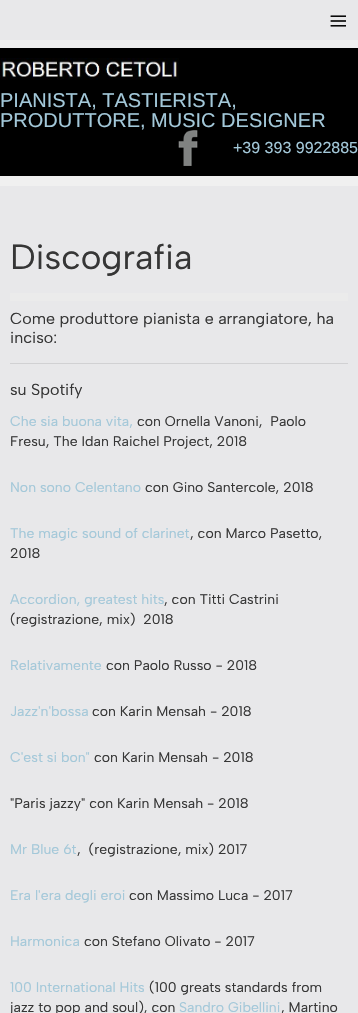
void draw(SkCanvas* canvas) {
	SkPaint paint;
	paint.setAntiAlias(true);
	canvas->clear(0xfff0f0f0);
	paint.setColor(0xffe8e8ea);
	canvas->drawRect(SkRect::MakeXYWH(0, 0, 358, 40), paint);
	SkFont f1(fontMgr->matchFamilyStyle("Liberation Serif", SkFontStyle::Normal()), 33);
	f1.setSubpixel(true);
	paint.setColor(0xff080808);
	canvas->drawString("≡", 329, 32, f1, paint);
	paint.setColor(0xff000000);
	canvas->drawRect(SkRect::MakeXYWH(0, 48, 358, 128), paint);
	canvas->drawImageRect(SkImages::DeferredFromEncodedData(SkData::MakeFromFileName("img1.png")), SkRect::MakeXYWH(0, 58, 179, 22), SkSamplingOptions());
	SkFont f2(fontMgr->matchFamilyStyle("Liberation Sans", SkFontStyle::Normal()), 20);
	f2.setSubpixel(true);
	paint.setColor(0xffa3c8d9);
	canvas->drawString("PIANISTA, TASTIERISTA,", 0, 107, f2, paint);
	canvas->drawString("PRODUTTORE, MUSIC DESIGNER", 0, 127, f2, paint);
	canvas->drawImageRect(SkImages::DeferredFromEncodedData(SkData::MakeFromFileName("img2.png")), SkRect::MakeXYWH(178, 130, 20, 36), SkSamplingOptions());
	SkFont f3(fontMgr->matchFamilyStyle("Liberation Sans", SkFontStyle::Normal()), 16);
	f3.setSubpixel(true);
	canvas->drawString("+39 393 9922885", 233, 153, f3, paint);
	paint.setColor(0xffe8e8ea);
	canvas->drawRect(SkRect::MakeXYWH(0, 186, 358, 827), paint);
	paint.setColor(0xffebebeb);
	canvas->drawRect(SkRect::MakeXYWH(10, 293, 338, 8), paint);
	SkFont f4(fontMgr->matchFamilyStyle("Albert Sans", SkFontStyle::Normal()), 35);
	f4.setSubpixel(true);
	paint.setColor(0xff363636);
	canvas->drawString("Discografia", 10, 269, f4, paint);
	SkFont f5(fontMgr->matchFamilyStyle("Albert Sans", SkFontStyle::Normal()), 16);
	f5.setSubpixel(true);
	canvas->drawString("Come produttore pianista e arrangiatore, ha", 10, 324, f5, paint);
	canvas->drawString("inciso:", 10, 343, f5, paint);
	paint.setColor(0xffd1d1d3);
	canvas->drawRect(SkRect::MakeXYWH(10, 363, 338, 1), paint);
	paint.setColor(0xff363636);
	canvas->drawString("su Spotify", 10, 395, f5, paint);
	SkFont f6(fontMgr->matchFamilyStyle("Albert Sans", SkFontStyle::Normal()), 14);
	f6.setSubpixel(true);
	paint.setColor(0xffa3c8d9);
	canvas->drawString("Che sia buona vita,", 10, 426, f6, paint);
	paint.setColor(0xff363636);
	canvas->drawString("con Ornella Vanoni,  Paolo", 137, 426, f6, paint);
	canvas->drawString("Fresu, The Idan Raichel Project, 2018", 10, 446, f6, paint);
	paint.setColor(0xffa3c8d9);
	canvas->drawString("Non sono Celentano", 10, 492, f6, paint);
	paint.setColor(0xff363636);
	canvas->drawString("con Gino Santercole, 2018", 145, 492, f6, paint);
	paint.setColor(0xffa3c8d9);
	canvas->drawString("The magic sound of clarinet", 10, 538, f6, paint);
	paint.setColor(0xff363636);
	canvas->drawString(", con Marco Pasetto,", 190, 538, f6, paint);
	canvas->drawString("2018", 10, 558, f6, paint);
	paint.setColor(0xffa3c8d9);
	canvas->drawString("Accordion, greatest hits", 10, 604, f6, paint);
	paint.setColor(0xff363636);
	canvas->drawString(", con Titti Castrini", 164, 604, f6, paint);
	canvas->drawString("(registrazione, mix)  2018", 10, 624, f6, paint);
	paint.setColor(0xffa3c8d9);
	canvas->drawString("Relativamente", 10, 670, f6, paint);
	paint.setColor(0xff363636);
	canvas->drawString("con Paolo Russo - 2018", 106, 670, f6, paint);
	paint.setColor(0xffa3c8d9);
	canvas->drawString("Jazz'n'bossa", 10, 716, f6, paint);
	paint.setColor(0xff363636);
	canvas->drawString("con Karin Mensah - 2018", 92, 716, f6, paint);
	paint.setColor(0xffa3c8d9);
	canvas->drawString("C'est si bon\"", 10, 762, f6, paint);
	paint.setColor(0xff363636);
	canvas->drawString("con Karin Mensah - 2018", 94, 762, f6, paint);
	canvas->drawString("\"Paris jazzy\" con Karin Mensah - 2018", 10, 808, f6, paint);
	paint.setColor(0xffa3c8d9);
	canvas->drawString("Mr Blue 6t", 10, 854, f6, paint);
	paint.setColor(0xff363636);
	canvas->drawString(",  (registrazione, mix) 2017", 77, 854, f6, paint);
	paint.setColor(0xffa3c8d9);
	canvas->drawString("Era l'era degli eroi", 10, 900, f6, paint);
	paint.setColor(0xff363636);
	canvas->drawString("con Massimo Luca - 2017", 129, 900, f6, paint);
	paint.setColor(0xffa3c8d9);
	canvas->drawString("Harmonica", 10, 946, f6, paint);
	paint.setColor(0xff363636);
	canvas->drawString("con Stefano Olivato - 2017", 84, 946, f6, paint);
	paint.setColor(0xffa3c8d9);
	canvas->drawString("100 International Hits", 10, 992, f6, paint);
	paint.setColor(0xff363636);
	canvas->drawString("(100 greats standards from", 149, 992, f6, paint);
	canvas->drawString("jazz to pop and soul), con", 10, 1012, f6, paint);
	paint.setColor(0xffa3c8d9);
	canvas->drawString("Sandro Gibellini", 179, 1012, f6, paint);
	paint.setColor(0xff363636);
	canvas->drawString(", Martino", 281, 1012, f6, paint);
}
